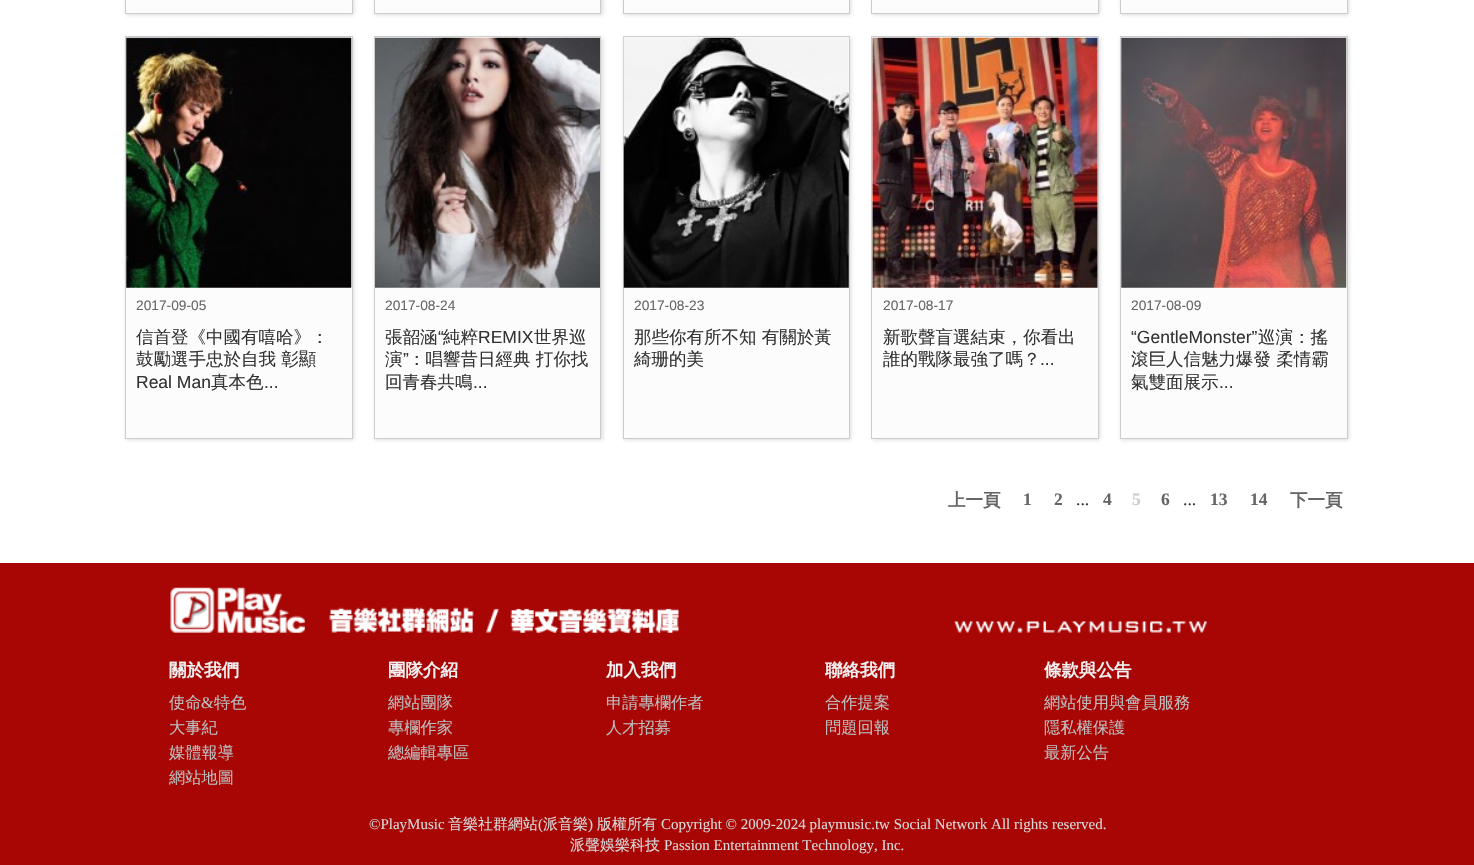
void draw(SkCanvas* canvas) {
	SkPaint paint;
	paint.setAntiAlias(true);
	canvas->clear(0xffffffff);
	paint.setColor(0xe6d8d8d8);
	paint.setMaskFilter(SkMaskFilter::MakeBlur(kNormal_SkBlurStyle, 2));
	canvas->drawRect(SkRect::MakeXYWH(126, -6, 228, 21), paint);
	paint.setMaskFilter(nullptr);
	paint.setColor(0xfffcfcfc);
	canvas->drawRect(SkRect::MakeXYWH(125.5, -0.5, 227, 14), paint);
	paint.setStroke(true);
	paint.setStrokeWidth(1);
	paint.setColor(0xffcccccc);
	canvas->drawRect(SkRect::MakeXYWH(125.5, -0.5, 227, 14), paint);
	paint.setStroke(false);
	paint.setColor(0xe6d8d8d8);
	paint.setMaskFilter(SkMaskFilter::MakeBlur(kNormal_SkBlurStyle, 2));
	canvas->drawRect(SkRect::MakeXYWH(375, -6, 228, 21), paint);
	paint.setMaskFilter(nullptr);
	paint.setColor(0xfffcfcfc);
	canvas->drawRect(SkRect::MakeXYWH(374.5, -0.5, 226, 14), paint);
	paint.setStroke(true);
	paint.setColor(0xffcccccc);
	canvas->drawRect(SkRect::MakeXYWH(374.5, -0.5, 226, 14), paint);
	paint.setStroke(false);
	paint.setColor(0xe6d8d8d8);
	paint.setMaskFilter(SkMaskFilter::MakeBlur(kNormal_SkBlurStyle, 2));
	canvas->drawRect(SkRect::MakeXYWH(624, -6, 227, 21), paint);
	paint.setMaskFilter(nullptr);
	paint.setColor(0xfffcfcfc);
	canvas->drawRect(SkRect::MakeXYWH(623.5, -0.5, 226, 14), paint);
	paint.setStroke(true);
	paint.setColor(0xffcccccc);
	canvas->drawRect(SkRect::MakeXYWH(623.5, -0.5, 226, 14), paint);
	paint.setStroke(false);
	paint.setColor(0xe6d8d8d8);
	paint.setMaskFilter(SkMaskFilter::MakeBlur(kNormal_SkBlurStyle, 2));
	canvas->drawRect(SkRect::MakeXYWH(873, -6, 227, 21), paint);
	paint.setMaskFilter(nullptr);
	paint.setColor(0xfffcfcfc);
	canvas->drawRect(SkRect::MakeXYWH(871.5, -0.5, 227, 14), paint);
	paint.setStroke(true);
	paint.setColor(0xffcccccc);
	canvas->drawRect(SkRect::MakeXYWH(871.5, -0.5, 227, 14), paint);
	paint.setStroke(false);
	paint.setColor(0xe6d8d8d8);
	paint.setMaskFilter(SkMaskFilter::MakeBlur(kNormal_SkBlurStyle, 2));
	canvas->drawRect(SkRect::MakeXYWH(1121, -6, 228, 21), paint);
	paint.setMaskFilter(nullptr);
	paint.setColor(0xfffcfcfc);
	canvas->drawRect(SkRect::MakeXYWH(1120.5, -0.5, 227, 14), paint);
	paint.setStroke(true);
	paint.setColor(0xffcccccc);
	canvas->drawRect(SkRect::MakeXYWH(1120.5, -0.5, 227, 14), paint);
	paint.setStroke(false);
	paint.setColor(0xe6d8d8d8);
	paint.setMaskFilter(SkMaskFilter::MakeBlur(kNormal_SkBlurStyle, 2));
	canvas->drawRect(SkRect::MakeXYWH(126, 38, 228, 402), paint);
	paint.setMaskFilter(nullptr);
	paint.setColor(0xfffcfcfc);
	canvas->drawRect(SkRect::MakeXYWH(125.5, 36.5, 227, 402), paint);
	paint.setStroke(true);
	paint.setColor(0xffcccccc);
	canvas->drawRect(SkRect::MakeXYWH(125.5, 36.5, 227, 402), paint);
	canvas->drawImageRect(SkImages::DeferredFromEncodedData(SkData::MakeFromFileName("img1.png")), SkRect::MakeXYWH(126, 37, 226, 251), SkSamplingOptions());
	SkFont f1(fontMgr->matchFamilyStyle("Liberation Sans", SkFontStyle::Normal()), 13.75);
	f1.setSubpixel(true);
	paint.setStroke(false);
	paint.setColor(0xff666666);
	canvas->drawString("2017-09-05", 136, 310, f1, paint);
	SkFont f2(fontMgr->matchFamilyStyle("WenQuanYi Zen Hei", SkFontStyle(500, SkFontStyle::kNormal_Width, SkFontStyle::kUpright_Slant)), 17.5);
	f2.setSubpixel(true);
	paint.setColor(0xff333333);
	canvas->drawString("信首登《中國有嘻哈》：", 136, 343, f2, paint);
	canvas->drawString("鼓勵選手忠於自我 彰顯", 136, 365, f2, paint);
	SkFont f3(fontMgr->matchFamilyStyle("Liberation Sans", SkFontStyle::Normal()), 17.5);
	f3.setSubpixel(true);
	canvas->drawString("Real Man", 136, 388, f3, paint);
	canvas->drawString("真本色", 211, 388, f2, paint);
	canvas->drawString("...", 264, 388, f3, paint);
	paint.setColor(0xe6d8d8d8);
	paint.setMaskFilter(SkMaskFilter::MakeBlur(kNormal_SkBlurStyle, 2));
	canvas->drawRect(SkRect::MakeXYWH(375, 38, 228, 402), paint);
	paint.setMaskFilter(nullptr);
	paint.setColor(0xfffcfcfc);
	canvas->drawRect(SkRect::MakeXYWH(374.5, 36.5, 226, 402), paint);
	paint.setStroke(true);
	paint.setColor(0xffcccccc);
	canvas->drawRect(SkRect::MakeXYWH(374.5, 36.5, 226, 402), paint);
	canvas->drawImageRect(SkImages::DeferredFromEncodedData(SkData::MakeFromFileName("img2.png")), SkRect::MakeXYWH(375, 37, 225, 251), SkSamplingOptions());
	paint.setStroke(false);
	paint.setColor(0xff666666);
	canvas->drawString("2017-08-24", 385, 310, f1, paint);
	paint.setColor(0xff333333);
	canvas->drawString("張韶涵", 385, 343, f2, paint);
	canvas->drawString("“", 438, 343, f3, paint);
	canvas->drawString("純粹", 443, 343, f2, paint);
	canvas->drawString("REMIX", 478, 343, f3, paint);
	canvas->drawString("世界巡", 534, 343, f2, paint);
	canvas->drawString("演", 385, 365, f2, paint);
	canvas->drawString("”", 403, 365, f3, paint);
	canvas->drawString("：唱響昔日經典 打你找", 408, 365, f2, paint);
	canvas->drawString("回青春共鳴", 385, 388, f2, paint);
	canvas->drawString("...", 473, 388, f3, paint);
	paint.setColor(0xe6d8d8d8);
	paint.setMaskFilter(SkMaskFilter::MakeBlur(kNormal_SkBlurStyle, 2));
	canvas->drawRect(SkRect::MakeXYWH(624, 38, 227, 402), paint);
	paint.setMaskFilter(nullptr);
	paint.setColor(0xfffcfcfc);
	canvas->drawRect(SkRect::MakeXYWH(623.5, 36.5, 226, 402), paint);
	paint.setStroke(true);
	paint.setColor(0xffcccccc);
	canvas->drawRect(SkRect::MakeXYWH(623.5, 36.5, 226, 402), paint);
	canvas->drawImageRect(SkImages::DeferredFromEncodedData(SkData::MakeFromFileName("img3.png")), SkRect::MakeXYWH(623, 37, 226, 251), SkSamplingOptions());
	paint.setStroke(false);
	paint.setColor(0xff666666);
	canvas->drawString("2017-08-23", 634, 310, f1, paint);
	paint.setColor(0xff333333);
	canvas->drawString("那些你有所不知 有關於黃", 634, 343, f2, paint);
	canvas->drawString("綺珊的美", 634, 365, f2, paint);
	paint.setColor(0xe6d8d8d8);
	paint.setMaskFilter(SkMaskFilter::MakeBlur(kNormal_SkBlurStyle, 2));
	canvas->drawRect(SkRect::MakeXYWH(873, 38, 227, 402), paint);
	paint.setMaskFilter(nullptr);
	paint.setColor(0xfffcfcfc);
	canvas->drawRect(SkRect::MakeXYWH(871.5, 36.5, 227, 402), paint);
	paint.setStroke(true);
	paint.setColor(0xffcccccc);
	canvas->drawRect(SkRect::MakeXYWH(871.5, 36.5, 227, 402), paint);
	canvas->drawImageRect(SkImages::DeferredFromEncodedData(SkData::MakeFromFileName("img4.png")), SkRect::MakeXYWH(872, 37, 226, 251), SkSamplingOptions());
	paint.setStroke(false);
	paint.setColor(0xff666666);
	canvas->drawString("2017-08-17", 883, 310, f1, paint);
	paint.setColor(0xff333333);
	canvas->drawString("新歌聲盲選結束，你看出", 883, 343, f2, paint);
	canvas->drawString("誰的戰隊最強了嗎？", 883, 365, f2, paint);
	canvas->drawString("...", 1040, 365, f3, paint);
	paint.setColor(0xe6d8d8d8);
	paint.setMaskFilter(SkMaskFilter::MakeBlur(kNormal_SkBlurStyle, 2));
	canvas->drawRect(SkRect::MakeXYWH(1121, 38, 228, 402), paint);
	paint.setMaskFilter(nullptr);
	paint.setColor(0xfffcfcfc);
	canvas->drawRect(SkRect::MakeXYWH(1120.5, 36.5, 227, 402), paint);
	paint.setStroke(true);
	paint.setColor(0xffcccccc);
	canvas->drawRect(SkRect::MakeXYWH(1120.5, 36.5, 227, 402), paint);
	canvas->drawImageRect(SkImages::DeferredFromEncodedData(SkData::MakeFromFileName("img5.png")), SkRect::MakeXYWH(1121, 37, 226, 251), SkSamplingOptions());
	paint.setStroke(false);
	paint.setColor(0xff666666);
	canvas->drawString("2017-08-09", 1131, 310, f1, paint);
	paint.setColor(0xff333333);
	canvas->drawString("“GentleMonster”", 1131, 343, f3, paint);
	canvas->drawString("巡演：搖", 1258, 343, f2, paint);
	canvas->drawString("滾巨人信魅力爆發 柔情霸", 1131, 365, f2, paint);
	canvas->drawString("氣雙面展示", 1131, 388, f2, paint);
	canvas->drawString("...", 1219, 388, f3, paint);
	SkFont f4(fontMgr->matchFamilyStyle("WenQuanYi Zen Hei", SkFontStyle::Bold()), 17.5);
	f4.setSubpixel(true);
	paint.setColor(0xff666666);
	canvas->drawString("上一頁", 948, 506, f4, paint);
	SkFont f5(fontMgr->matchFamilyStyle("Liberation Serif", SkFontStyle::Bold()), 17.5);
	f5.setSubpixel(true);
	canvas->drawString("1", 1023, 505, f5, paint);
	canvas->drawString("2", 1054, 505, f5, paint);
	SkFont f6(fontMgr->matchFamilyStyle("Liberation Serif", SkFontStyle::Normal()), 17.5);
	f6.setSubpixel(true);
	paint.setColor(0xff333333);
	canvas->drawString("...", 1076, 505, f6, paint);
	paint.setColor(0xff666666);
	canvas->drawString("4", 1103, 505, f5, paint);
	paint.setColor(0xffcccccc);
	canvas->drawString("5", 1132, 505, f5, paint);
	paint.setColor(0xff666666);
	canvas->drawString("6", 1161, 505, f5, paint);
	paint.setColor(0xff333333);
	canvas->drawString("...", 1183, 505, f6, paint);
	paint.setColor(0xff666666);
	canvas->drawString("13", 1210, 505, f5, paint);
	canvas->drawString("14", 1250, 505, f5, paint);
	canvas->drawString("下一頁", 1290, 506, f4, paint);
	paint.setColor(0xffa80505);
	canvas->drawRect(SkRect::MakeXYWH(0, 563, 1474, 302), paint);
	canvas->drawImageRect(SkImages::DeferredFromEncodedData(SkData::MakeFromFileName("img6.png")), SkRect::MakeXYWH(170, 587, 1038, 47), SkSamplingOptions());
	paint.setColor(0xfff2f2f2);
	canvas->drawString("關於我們", 169, 676, f4, paint);
	SkFont f7(fontMgr->matchFamilyStyle("WenQuanYi Zen Hei", SkFontStyle(500, SkFontStyle::kNormal_Width, SkFontStyle::kUpright_Slant)), 16.25);
	f7.setSubpixel(true);
	paint.setColor(0xffbdbdbd);
	canvas->drawString("使命", 169, 708, f7, paint);
	SkFont f8(fontMgr->matchFamilyStyle("Liberation Serif", SkFontStyle::Normal()), 16.25);
	f8.setSubpixel(true);
	canvas->drawString("&", 201, 708, f8, paint);
	canvas->drawString("特色", 214, 708, f7, paint);
	canvas->drawString("大事紀", 169, 733, f7, paint);
	canvas->drawString("媒體報導", 169, 758, f7, paint);
	canvas->drawString("網站地圖", 169, 783, f7, paint);
	paint.setColor(0xfff2f2f2);
	canvas->drawString("團隊介紹", 388, 676, f4, paint);
	paint.setColor(0xffbdbdbd);
	canvas->drawString("網站團隊", 388, 708, f7, paint);
	canvas->drawString("專欄作家", 388, 733, f7, paint);
	canvas->drawString("總編輯專區", 388, 758, f7, paint);
	paint.setColor(0xfff2f2f2);
	canvas->drawString("加入我們", 606, 676, f4, paint);
	paint.setColor(0xffbdbdbd);
	canvas->drawString("申請專欄作者", 606, 708, f7, paint);
	canvas->drawString("人才招募", 606, 733, f7, paint);
	paint.setColor(0xfff2f2f2);
	canvas->drawString("聯絡我們", 825, 676, f4, paint);
	paint.setColor(0xffbdbdbd);
	canvas->drawString("合作提案", 825, 708, f7, paint);
	canvas->drawString("問題回報", 825, 733, f7, paint);
	paint.setColor(0xfff2f2f2);
	canvas->drawString("條款與公告", 1044, 676, f4, paint);
	paint.setColor(0xffbdbdbd);
	canvas->drawString("網站使用與會員服務", 1044, 708, f7, paint);
	canvas->drawString("隱私權保護", 1044, 733, f7, paint);
	canvas->drawString("最新公告", 1044, 758, f7, paint);
	SkFont f9(fontMgr->matchFamilyStyle("Liberation Serif", SkFontStyle::Normal()), 15);
	f9.setSubpixel(true);
	paint.setColor(0xffd8d8d8);
	canvas->drawString("©PlayMusic", 369, 829, f9, paint);
	SkFont f10(fontMgr->matchFamilyStyle("WenQuanYi Zen Hei", SkFontStyle(500, SkFontStyle::kNormal_Width, SkFontStyle::kUpright_Slant)), 15);
	f10.setSubpixel(true);
	canvas->drawString("音樂社群網站", 448, 829, f10, paint);
	canvas->drawString("(", 538, 829, f9, paint);
	canvas->drawString("派音樂", 543, 829, f10, paint);
	canvas->drawString(")", 588, 829, f9, paint);
	canvas->drawString("版權所有", 597, 829, f10, paint);
	canvas->drawString("Copyright © 2009-2024 playmusic.tw Social Network All rights reserved.", 661, 829, f9, paint);
	canvas->drawString("派聲娛樂科技", 570, 850, f10, paint);
	canvas->drawString("Passion Entertainment Technology, Inc.", 664, 850, f9, paint);
}
